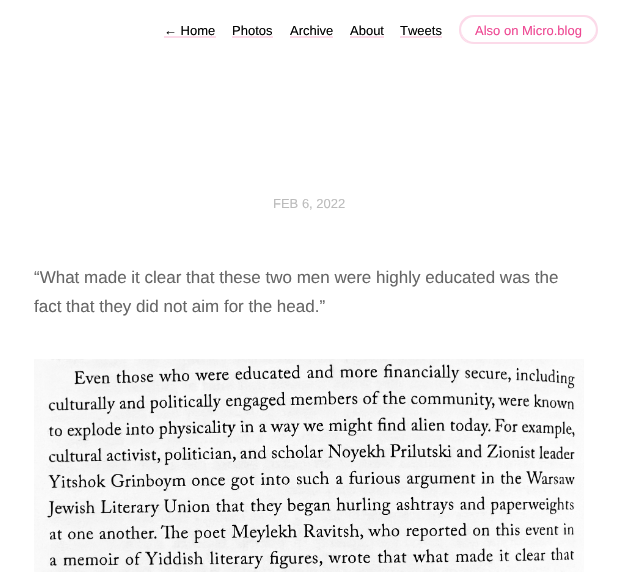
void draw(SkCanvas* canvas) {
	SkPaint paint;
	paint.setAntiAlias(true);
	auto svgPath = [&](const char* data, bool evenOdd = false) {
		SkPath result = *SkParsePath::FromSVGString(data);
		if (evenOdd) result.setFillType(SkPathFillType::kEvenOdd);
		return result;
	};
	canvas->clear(0xffffffff);
	SkFont f1(fontMgr->matchFamilyStyle("Liberation Sans", SkFontStyle::Normal()), 13);
	f1.setSubpixel(true);
	paint.setColor(0xff000000);
	canvas->drawString("← Home", 164, 35, f1, paint);
	paint.setColor(0xfffcdae9);
	canvas->drawRect(SkRect::MakeXYWH(164, 36, 52, 2), paint);
	paint.setColor(0xff000000);
	canvas->drawString("Photos", 232, 35, f1, paint);
	paint.setColor(0xfffcdae9);
	canvas->drawRect(SkRect::MakeXYWH(232, 36, 41, 2), paint);
	paint.setColor(0xff000000);
	canvas->drawString("Archive", 290, 35, f1, paint);
	paint.setColor(0xfffcdae9);
	canvas->drawRect(SkRect::MakeXYWH(290, 36, 43, 2), paint);
	paint.setColor(0xff000000);
	canvas->drawString("About", 350, 35, f1, paint);
	paint.setColor(0xfffcdae9);
	canvas->drawRect(SkRect::MakeXYWH(350, 36, 34, 2), paint);
	paint.setColor(0xff000000);
	canvas->drawString("Tweets", 400, 35, f1, paint);
	paint.setColor(0xfffcdae9);
	canvas->drawRect(SkRect::MakeXYWH(400, 36, 42, 2), paint);
	canvas->drawPath(svgPath("M461 29V30C461 38 467 44 474 44H584C590 44 596 38 596 30V29C596 36 590 42 584 42H474C467 42 461 36 461 29Z"), paint);
	canvas->drawPath(svgPath("M474 15H584C592 15 598 21 598 30C598 38 592 44 584 44H474C465 44 459 38 459 30C459 21 465 15 474 15ZM474 17H584C590 17 596 23 596 30C596 38 590 44 584 44H474C467 44 461 38 461 30C461 23 467 17 474 17Z", true), paint);
	paint.setColor(0xffee4792);
	canvas->drawString("Also on Micro.blog", 475, 35, f1, paint);
	paint.setColor(0xffbbbbbb);
	canvas->drawString("FEB 6, 2022", 273, 208, f1, paint);
	SkFont f2(fontMgr->matchFamilyStyle("Liberation Sans", SkFontStyle::Normal()), 17);
	f2.setSubpixel(true);
	paint.setColor(0xff666666);
	canvas->drawString("“What made it clear that these two men were highly educated was the", 34, 283, f2, paint);
	canvas->drawString("fact that they did not aim for the head.”", 34, 312, f2, paint);
	canvas->drawImageRect(SkImages::DeferredFromEncodedData(SkData::MakeFromFileName("img1.png")), SkRect::MakeXYWH(34, 359, 550, 213), SkSamplingOptions());
}
